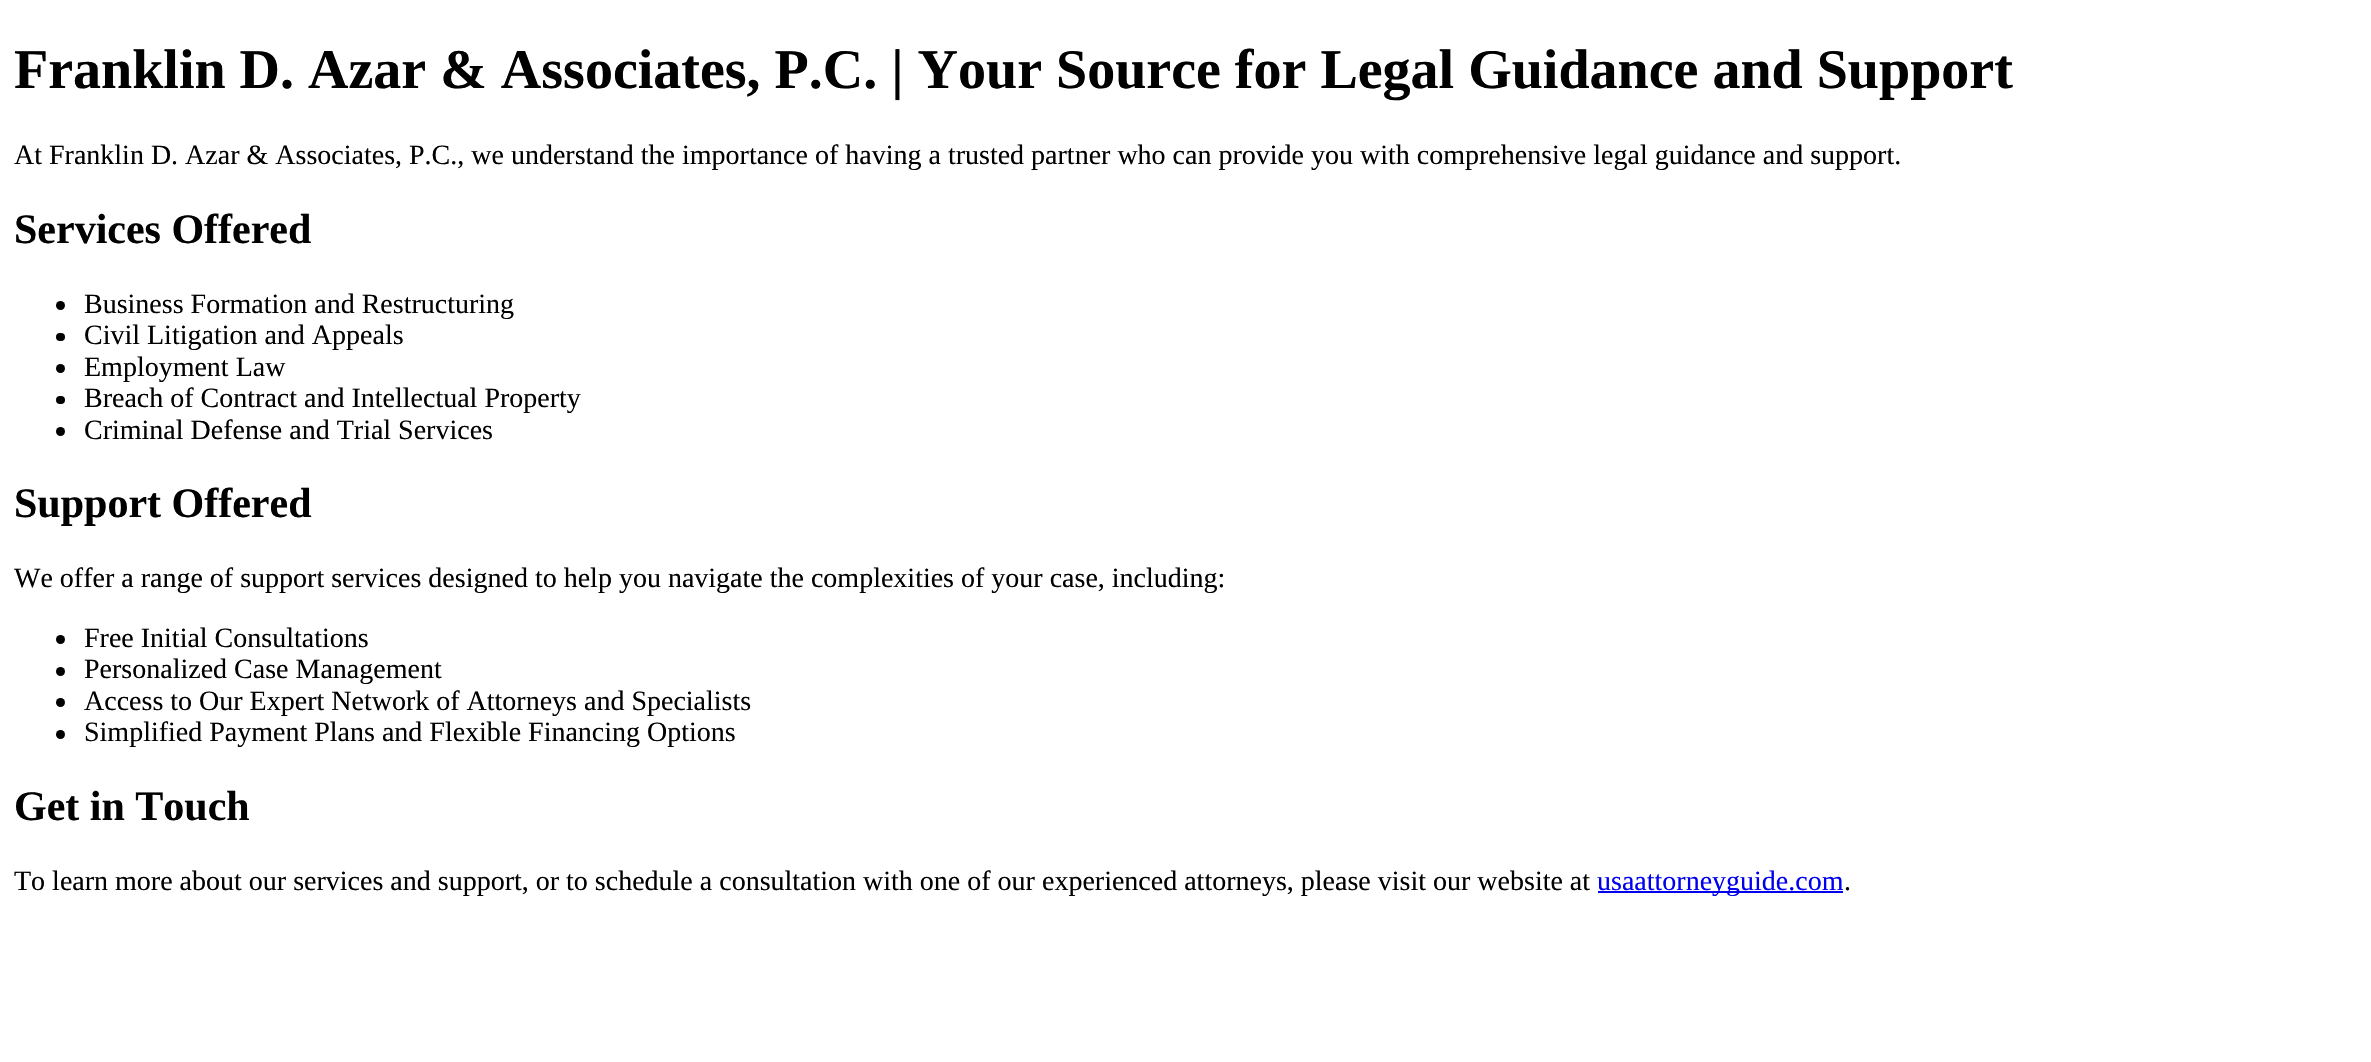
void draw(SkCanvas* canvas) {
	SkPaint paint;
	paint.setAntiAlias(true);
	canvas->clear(0xffffffff);
	SkFont f1(fontMgr->matchFamilyStyle("Liberation Serif", SkFontStyle::Bold()), 56);
	f1.setSubpixel(true);
	paint.setColor(0xff000000);
	canvas->drawString("Franklin D. Azar & Associates, P.C. | Your Source for Legal Guidance and Support", 14, 88, f1, paint);
	SkFont f2(fontMgr->matchFamilyStyle("Liberation Serif", SkFontStyle::Normal()), 28);
	f2.setSubpixel(true);
	canvas->drawString("At Franklin D. Azar & Associates, P.C., we understand the importance of having a trusted partner who can provide you with comprehensive legal guidance and support.", 14, 164, f2, paint);
	SkFont f3(fontMgr->matchFamilyStyle("Liberation Serif", SkFontStyle::Bold()), 42);
	f3.setSubpixel(true);
	canvas->drawString("Services Offered", 14, 243, f3, paint);
	canvas->drawCircle(60.5, 305.5, 4.5, paint);
	canvas->drawString("Business Formation and Restructuring", 84, 313, f2, paint);
	canvas->drawRoundRect(SkRect::MakeXYWH(56, 333, 9, 8), 4, 4, paint);
	canvas->drawString("Civil Litigation and Appeals", 84, 344, f2, paint);
	canvas->drawCircle(60.5, 368.5, 4.5, paint);
	canvas->drawString("Employment Law", 84, 376, f2, paint);
	canvas->drawRoundRect(SkRect::MakeXYWH(56, 396, 9, 8), 4, 4, paint);
	canvas->drawString("Breach of Contract and Intellectual Property", 84, 407, f2, paint);
	canvas->drawCircle(60.5, 431.5, 4.5, paint);
	canvas->drawString("Criminal Defense and Trial Services", 84, 439, f2, paint);
	canvas->drawString("Support Offered", 14, 517, f3, paint);
	canvas->drawString("We offer a range of support services designed to help you navigate the complexities of your case, including:", 14, 587, f2, paint);
	canvas->drawCircle(60.5, 639.5, 4.5, paint);
	canvas->drawString("Free Initial Consultations", 84, 647, f2, paint);
	canvas->drawCircle(60.5, 671.5, 4.5, paint);
	canvas->drawString("Personalized Case Management", 84, 678, f2, paint);
	canvas->drawCircle(60.5, 702.5, 4.5, paint);
	canvas->drawString("Access to Our Expert Network of Attorneys and Specialists", 84, 710, f2, paint);
	canvas->drawCircle(60.5, 734.5, 4.5, paint);
	canvas->drawString("Simplified Payment Plans and Flexible Financing Options", 84, 741, f2, paint);
	canvas->drawString("Get in Touch", 14, 820, f3, paint);
	canvas->drawString("To learn more about our services and support, or to schedule a consultation with one of our experienced attorneys, please visit our website at", 14, 890, f2, paint);
	paint.setColor(0xff0000ee);
	canvas->drawRect(SkRect::MakeXYWH(1598, 891, 245, 2), paint);
	canvas->drawString("usaattorneyguide.com", 1597, 890, f2, paint);
	paint.setColor(0xff000000);
	canvas->drawString(".", 1844, 890, f2, paint);
}
